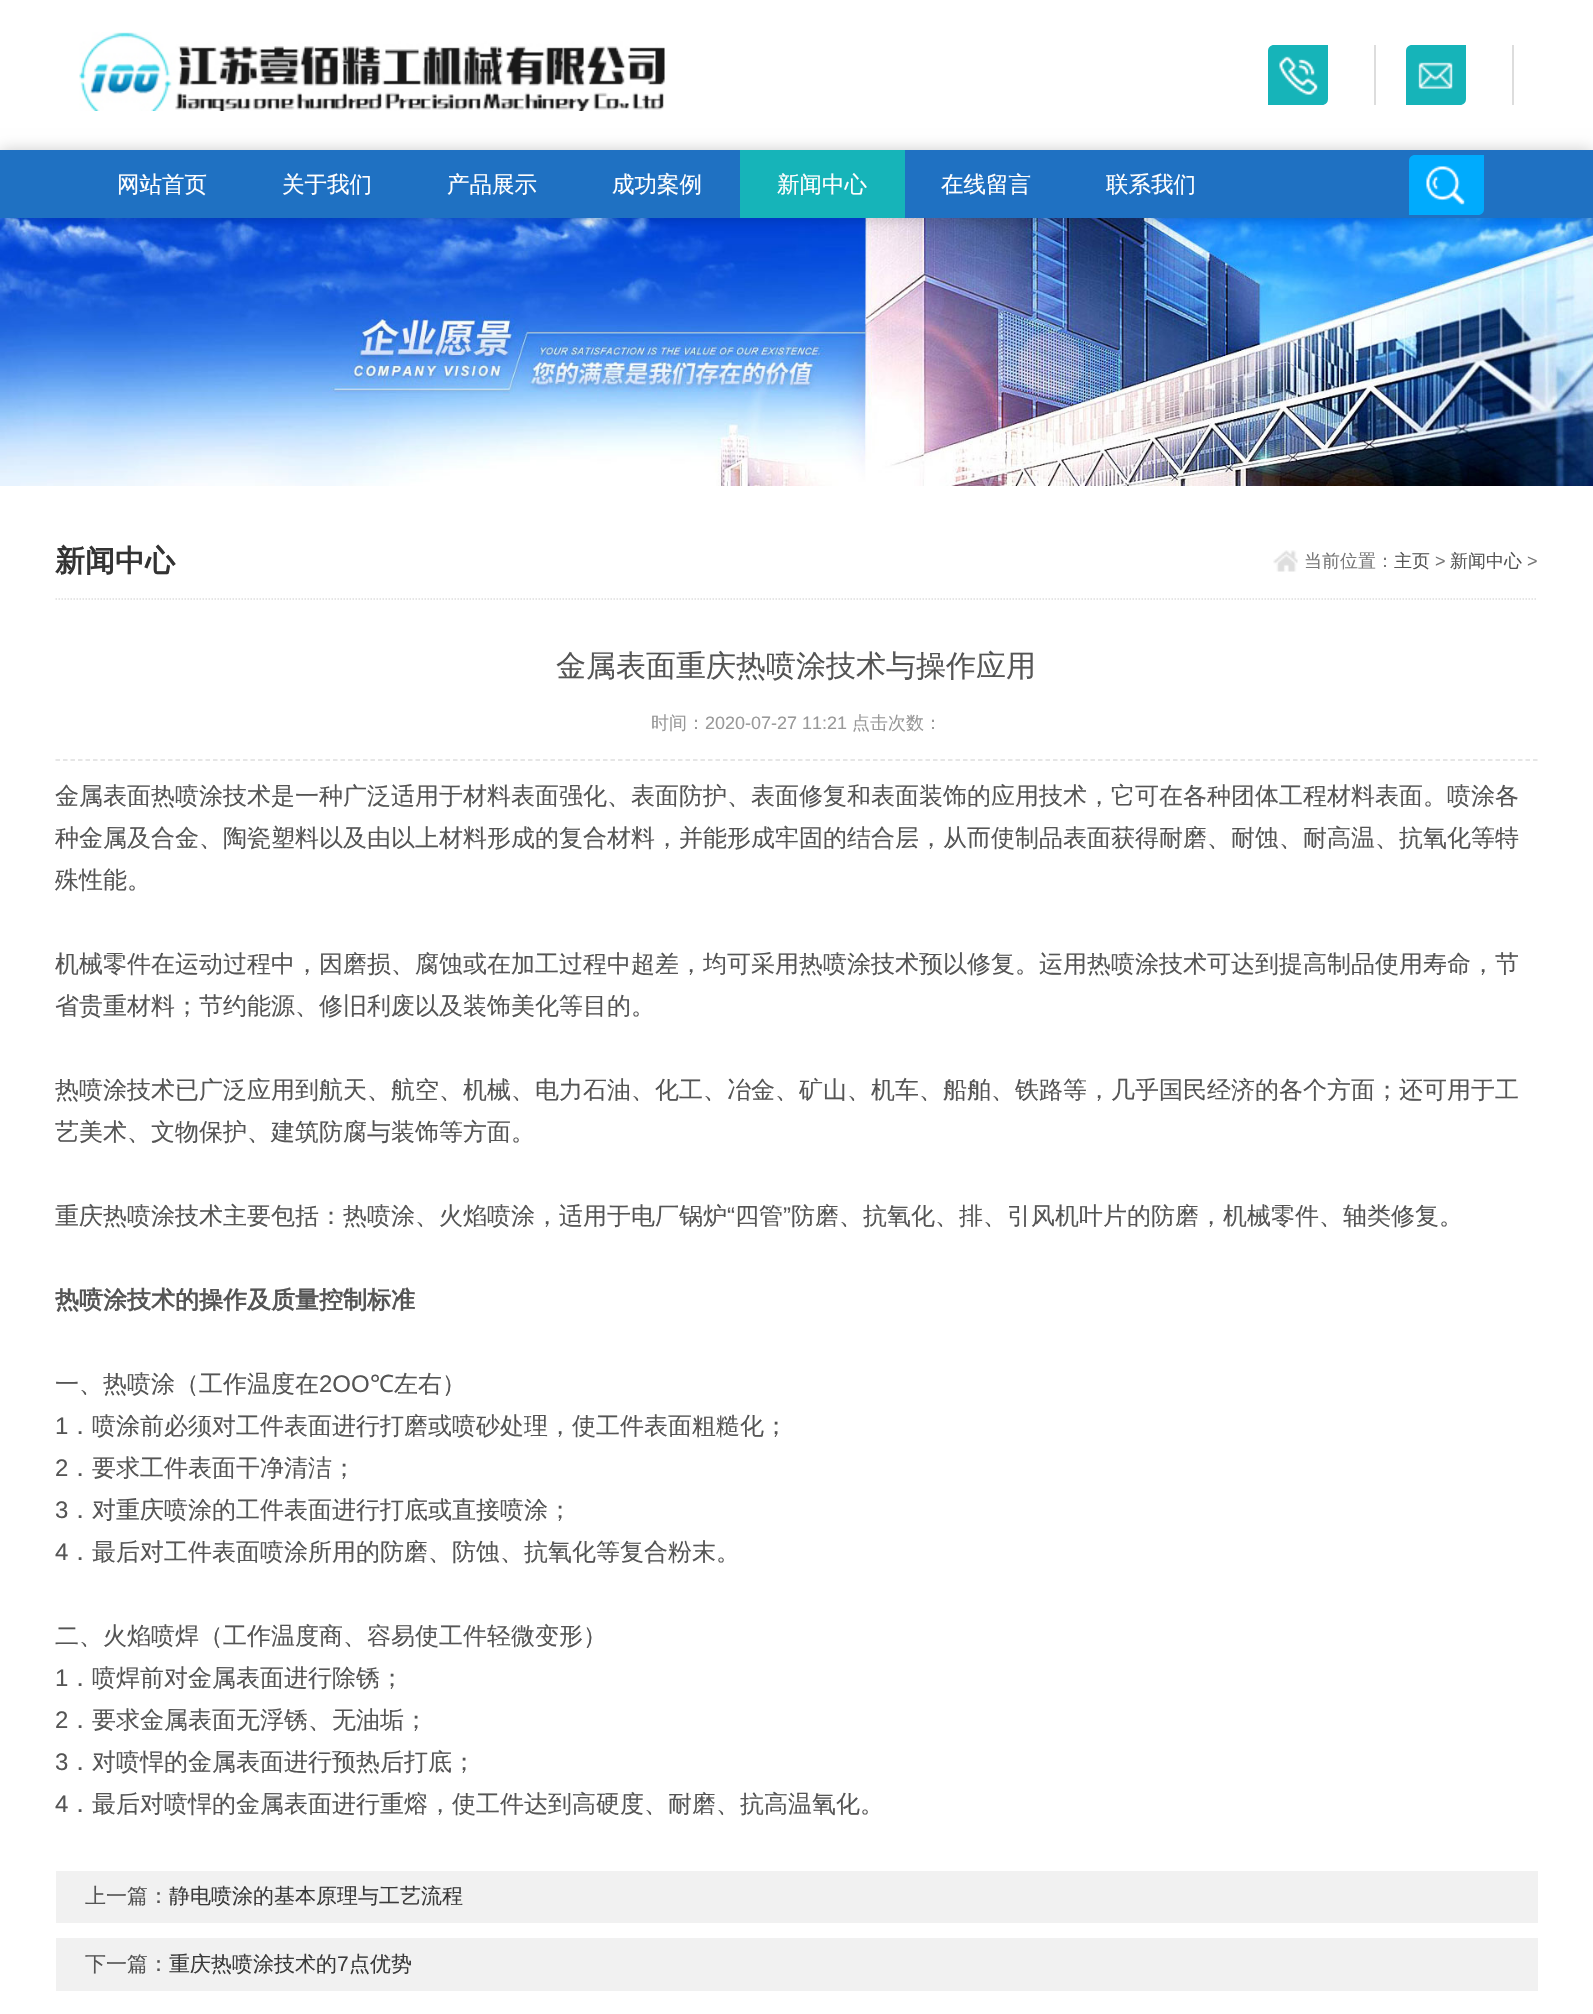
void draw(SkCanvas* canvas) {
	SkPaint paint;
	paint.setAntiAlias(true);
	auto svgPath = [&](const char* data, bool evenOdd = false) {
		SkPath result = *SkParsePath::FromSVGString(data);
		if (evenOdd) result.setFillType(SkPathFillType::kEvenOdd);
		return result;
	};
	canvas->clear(0xffffffff);
	canvas->drawImageRect(SkImages::DeferredFromEncodedData(SkData::MakeFromFileName("img1.png")), SkRect::MakeXYWH(79, 32, 586, 79), SkSamplingOptions());
	paint.setColor(0xffdddddd);
	canvas->drawRect(SkRect::MakeXYWH(1374, 45, 2, 60), paint);
	paint.setColor(0xff16b4b9);
	canvas->drawPath(svgPath("M1274 45H1328V99C1328 102.5 1325.5 105 1322 105H1268V51C1268 47.5 1270.5 45 1274 45Z"), paint);
	canvas->drawImageRect(SkImages::DeferredFromEncodedData(SkData::MakeFromFileName("img2.png")), SkRect::MakeXYWH(1279, 56, 39, 39), SkSamplingOptions());
	paint.setColor(0xffdddddd);
	canvas->drawRect(SkRect::MakeXYWH(1512, 45, 2, 60), paint);
	paint.setColor(0xff16b4b9);
	canvas->drawPath(svgPath("M1412 45H1466V99C1466 102.5 1463.5 105 1460 105H1406V51C1406 47.5 1408.5 45 1412 45Z"), paint);
	canvas->drawImageRect(SkImages::DeferredFromEncodedData(SkData::MakeFromFileName("img3.png")), SkRect::MakeXYWH(1418, 62, 35, 27), SkSamplingOptions());
	canvas->drawImageRect(SkImages::DeferredFromEncodedData(SkData::MakeFromFileName("img5.png")), SkRect::MakeXYWH(0, 218, 1593, 268), SkSamplingOptions());
	paint.setColor(0x33000000);
	paint.setMaskFilter(SkMaskFilter::MakeBlur(kNormal_SkBlurStyle, 7.5));
	canvas->drawRect(SkRect::MakeXYWH(0, 150, 1593, 68), paint);
	paint.setMaskFilter(nullptr);
	paint.setColor(0xff1f71c2);
	canvas->drawRect(SkRect::MakeXYWH(0, 150, 1593, 68), paint);
	SkFont f1(fontMgr->matchFamilyStyle("WenQuanYi Zen Hei", SkFontStyle(500, SkFontStyle::kNormal_Width, SkFontStyle::kUpright_Slant)), 22.5);
	f1.setSubpixel(true);
	paint.setColor(0xffffffff);
	canvas->drawString("网站首页", 117, 192, f1, paint);
	canvas->drawString("关于我们", 282, 192, f1, paint);
	canvas->drawString("产品展示", 447, 192, f1, paint);
	canvas->drawString("成功案例", 612, 192, f1, paint);
	paint.setColor(0xff16b4b9);
	canvas->drawRect(SkRect::MakeXYWH(740, 150, 165, 68), paint);
	paint.setColor(0xffffffff);
	canvas->drawString("新闻中心", 777, 192, f1, paint);
	canvas->drawString("在线留言", 941, 192, f1, paint);
	canvas->drawString("联系我们", 1106, 192, f1, paint);
	paint.setColor(0xff00abfd);
	canvas->drawPath(svgPath("M1415 155H1484V209C1484 212.5 1481.5 215 1478 215H1409V161C1409 157.5 1411.5 155 1415 155Z"), paint);
	canvas->drawImageRect(SkImages::DeferredFromEncodedData(SkData::MakeFromFileName("img4.png")), SkRect::MakeXYWH(1426, 166, 39, 39), SkSamplingOptions());
	paint.setStroke(true);
	paint.setStrokeWidth(1.5);
	paint.setColor(0xffdedede);
	paint.setPathEffect(SkDashPathEffect::Make({{1.5f, 1.5f}}, 0));
	canvas->drawPath(svgPath("M55.5 599H1537.5"), paint);
	paint.setPathEffect(nullptr);
	SkFont f2(fontMgr->matchFamilyStyle("WenQuanYi Zen Hei", SkFontStyle::Bold()), 30);
	f2.setSubpixel(true);
	paint.setStroke(false);
	paint.setColor(0xff333333);
	canvas->drawString("新闻中心", 55, 571, f2, paint);
	canvas->drawImageRect(SkImages::DeferredFromEncodedData(SkData::MakeFromFileName("img6.png")), SkRect::MakeXYWH(1273, 550, 25, 22), SkSamplingOptions());
	SkFont f3(fontMgr->matchFamilyStyle("WenQuanYi Zen Hei", SkFontStyle(500, SkFontStyle::kNormal_Width, SkFontStyle::kUpright_Slant)), 18);
	f3.setSubpixel(true);
	paint.setColor(0xff777777);
	canvas->drawString("当前位置：", 1304, 567, f3, paint);
	paint.setColor(0xff555555);
	canvas->drawString("主页", 1394, 567, f3, paint);
	SkFont f4(fontMgr->matchFamilyStyle("Liberation Sans", SkFontStyle::Normal()), 18);
	f4.setSubpixel(true);
	paint.setColor(0xff777777);
	canvas->drawString(">", 1435, 567, f4, paint);
	paint.setColor(0xff555555);
	canvas->drawString("新闻中心", 1450, 567, f3, paint);
	paint.setColor(0xff777777);
	canvas->drawString(">", 1527, 567, f4, paint);
	SkFont f5(fontMgr->matchFamilyStyle("WenQuanYi Zen Hei", SkFontStyle(500, SkFontStyle::kNormal_Width, SkFontStyle::kUpright_Slant)), 30);
	f5.setSubpixel(true);
	paint.setColor(0xff555555);
	canvas->drawString("金属表面重庆热喷涂技术与操作应用", 556, 676, f5, paint);
	paint.setStroke(true);
	paint.setColor(0xffdedede);
	paint.setPathEffect(SkDashPathEffect::Make({{4.5f, 3}}, 0));
	canvas->drawPath(svgPath("M55.5 760H1537.5"), paint);
	paint.setPathEffect(nullptr);
	paint.setStroke(false);
	paint.setColor(0xff999999);
	canvas->drawString("时间：", 651, 729, f3, paint);
	canvas->drawString("2020-07-27 11:21", 705, 729, f4, paint);
	canvas->drawString("点击次数：", 852, 729, f3, paint);
	SkFont f6(fontMgr->matchFamilyStyle("WenQuanYi Zen Hei", SkFontStyle(500, SkFontStyle::kNormal_Width, SkFontStyle::kUpright_Slant)), 24);
	f6.setSubpixel(true);
	paint.setColor(0xff555555);
	canvas->drawString("金属表面热喷涂技术是一种广泛适用于材料表面强化、表面防护、表面修复和表面装饰的应用技术，它可在各种团体工程材料表面。喷涂各", 55, 804, f6, paint);
	canvas->drawString("种金属及合金、陶瓷塑料以及由以上材料形成的复合材料，并能形成牢固的结合层，从而使制品表面获得耐磨、耐蚀、耐高温、抗氧化等特", 55, 846, f6, paint);
	canvas->drawString("殊性能。", 55, 888, f6, paint);
	canvas->drawString("机械零件在运动过程中，因磨损、腐蚀或在加工过程中超差，均可采用热喷涂技术预以修复。运用热喷涂技术可达到提高制品使用寿命，节", 55, 972, f6, paint);
	canvas->drawString("省贵重材料；节约能源、修旧利废以及装饰美化等目的。", 55, 1014, f6, paint);
	canvas->drawString("热喷涂技术已广泛应用到航天、航空、机械、电力石油、化工、冶金、矿山、机车、船舶、铁路等，几乎国民经济的各个方面；还可用于工", 55, 1098, f6, paint);
	canvas->drawString("艺美术、文物保护、建筑防腐与装饰等方面。", 55, 1140, f6, paint);
	canvas->drawString("重庆热喷涂技术主要包括：热喷涂、火焰喷涂，适用于电厂锅炉", 55, 1224, f6, paint);
	SkFont f7(fontMgr->matchFamilyStyle("Liberation Sans", SkFontStyle::Normal()), 24);
	f7.setSubpixel(true);
	canvas->drawString("“", 727, 1224, f7, paint);
	canvas->drawString("四管", 735, 1224, f6, paint);
	canvas->drawString("”", 783, 1224, f7, paint);
	canvas->drawString("防磨、抗氧化、排、引风机叶片的防磨，机械零件、轴类修复。", 791, 1224, f6, paint);
	SkFont f8(fontMgr->matchFamilyStyle("WenQuanYi Zen Hei", SkFontStyle::Bold()), 24);
	f8.setSubpixel(true);
	canvas->drawString("热喷涂技术的操作及质量控制标准", 55, 1308, f8, paint);
	canvas->drawString("一、热喷涂（工作温度在", 55, 1392, f6, paint);
	canvas->drawString("2OO", 319, 1392, f7, paint);
	SkFont f9(fontMgr->matchFamilyStyle("Noto Sans", SkFontStyle::Normal()), 24);
	f9.setSubpixel(true);
	canvas->drawString("℃", 370, 1392, f9, paint);
	canvas->drawString("左右）", 394, 1392, f6, paint);
	canvas->drawString("1", 55, 1434, f7, paint);
	canvas->drawString("．喷涂前必须对工件表面进行打磨或喷砂处理，使工件表面粗糙化；", 68, 1434, f6, paint);
	canvas->drawString("2", 55, 1476, f7, paint);
	canvas->drawString("．要求工件表面干净清洁；", 68, 1476, f6, paint);
	canvas->drawString("3", 55, 1518, f7, paint);
	canvas->drawString("．对重庆喷涂的工件表面进行打底或直接喷涂；", 68, 1518, f6, paint);
	canvas->drawString("4", 55, 1560, f7, paint);
	canvas->drawString("．最后对工件表面喷涂所用的防磨、防蚀、抗氧化等复合粉末。", 68, 1560, f6, paint);
	canvas->drawString("二、火焰喷焊（工作温度商、容易使工件轻微变形）", 55, 1644, f6, paint);
	canvas->drawString("1", 55, 1686, f7, paint);
	canvas->drawString("．喷焊前对金属表面进行除锈；", 68, 1686, f6, paint);
	canvas->drawString("2", 55, 1728, f7, paint);
	canvas->drawString("．要求金属表面无浮锈、无油垢；", 68, 1728, f6, paint);
	canvas->drawString("3", 55, 1770, f7, paint);
	canvas->drawString("．对喷悍的金属表面进行预热后打底；", 68, 1770, f6, paint);
	canvas->drawString("4", 55, 1812, f7, paint);
	canvas->drawString("．最后对喷悍的金属表面进行重熔，使工件达到高硬度、耐磨、抗高温氧化。", 68, 1812, f6, paint);
	paint.setColor(0xfff1f1f1);
	canvas->drawRect(SkRect::MakeXYWH(56, 1871, 1482, 52), paint);
	SkFont f10(fontMgr->matchFamilyStyle("WenQuanYi Zen Hei", SkFontStyle(500, SkFontStyle::kNormal_Width, SkFontStyle::kUpright_Slant)), 21);
	f10.setSubpixel(true);
	paint.setColor(0xff555555);
	canvas->drawString("上一篇：", 85, 1903, f10, paint);
	paint.setColor(0xff3a3a3a);
	canvas->drawString("静电喷涂的基本原理与工艺流程", 169, 1903, f10, paint);
	paint.setColor(0xfff1f1f1);
	canvas->drawRect(SkRect::MakeXYWH(56, 1938, 1482, 53), paint);
	paint.setColor(0xff555555);
	canvas->drawString("下一篇：", 85, 1971, f10, paint);
	paint.setColor(0xff3a3a3a);
	canvas->drawString("重庆热喷涂技术的", 169, 1971, f10, paint);
	SkFont f11(fontMgr->matchFamilyStyle("Liberation Sans", SkFontStyle::Normal()), 21);
	f11.setSubpixel(true);
	canvas->drawString("7", 337, 1971, f11, paint);
	canvas->drawString("点优势", 349, 1971, f10, paint);
}
